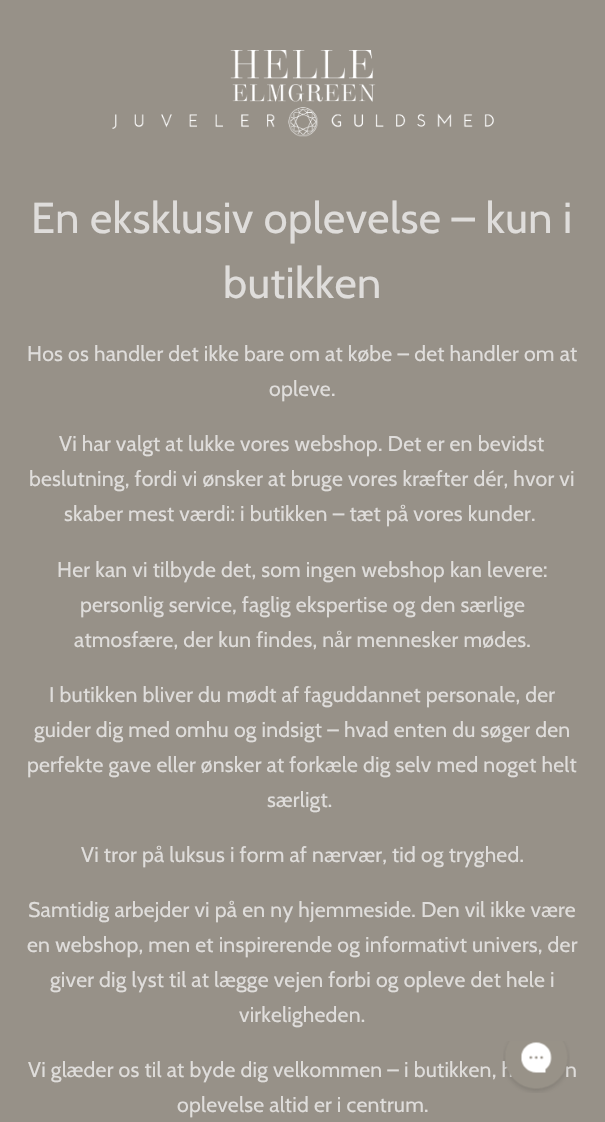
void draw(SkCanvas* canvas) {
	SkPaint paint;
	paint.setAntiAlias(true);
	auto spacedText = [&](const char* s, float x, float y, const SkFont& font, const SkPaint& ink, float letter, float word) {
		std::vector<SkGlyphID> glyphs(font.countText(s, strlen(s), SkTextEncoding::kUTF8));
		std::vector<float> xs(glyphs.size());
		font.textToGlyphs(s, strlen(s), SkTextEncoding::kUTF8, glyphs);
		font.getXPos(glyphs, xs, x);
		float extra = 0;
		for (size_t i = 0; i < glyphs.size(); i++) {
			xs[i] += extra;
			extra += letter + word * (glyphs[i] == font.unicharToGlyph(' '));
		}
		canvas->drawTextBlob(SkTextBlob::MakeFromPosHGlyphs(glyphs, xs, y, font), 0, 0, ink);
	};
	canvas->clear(0xff979188);
	canvas->drawImageRect(SkImages::DeferredFromEncodedData(SkData::MakeFromFileName("img1.png")), SkRect::MakeXYWH(112, 50, 382, 87), SkSamplingOptions());
	SkFont f1(fontMgr->matchFamilyStyle("Cabin", SkFontStyle::Normal()), 43.25);
	f1.setSubpixel(true);
	paint.setColor(0xffdfdddb);
	spacedText("En eksklusiv oplevelse – kun i", 31, 233, f1, paint, 0.4, 0);
	spacedText("butikken", 223, 298, f1, paint, 0.4, 0);
	SkFont f2(fontMgr->matchFamilyStyle("Cabin", SkFontStyle::Normal()), 21.25);
	f2.setSubpixel(true);
	spacedText("Hos os handler det ikke bare om at købe – det handler om at", 27, 361, f2, paint, 0.2, 0);
	spacedText("opleve.", 269, 396, f2, paint, 0.2, 0);
	spacedText("Vi har valgt at lukke vores webshop. Det er en bevidst", 59, 451, f2, paint, 0.2, 0);
	spacedText("beslutning, fordi vi ønsker at bruge vores kræfter dér, hvor vi", 29, 486, f2, paint, 0.2, 0);
	spacedText("skaber mest værdi: i butikken – tæt på vores kunder.", 64, 521, f2, paint, 0.2, 0);
	spacedText("Her kan vi tilbyde det, som ingen webshop kan levere:", 57, 577, f2, paint, 0.2, 0);
	spacedText("personlig service, faglig ekspertise og den særlige", 80, 612, f2, paint, 0.2, 0);
	spacedText("atmosfære, der kun findes, når mennesker mødes.", 74, 647, f2, paint, 0.2, 0);
	spacedText("I butikken bliver du mødt af faguddannet personale, der", 49, 702, f2, paint, 0.2, 0);
	spacedText("guider dig med omhu og indsigt – hvad enten du søger den", 34, 737, f2, paint, 0.2, 0);
	spacedText("perfekte gave eller ønsker at forkæle dig selv med noget helt", 27, 772, f2, paint, 0.2, 0);
	spacedText("særligt.", 267, 807, f2, paint, 0.2, 0);
	spacedText("Vi tror på luksus i form af nærvær, tid og tryghed.", 81, 862, f2, paint, 0.2, 0);
	spacedText("Samtidig arbejder vi på en ny hjemmeside. Den vil ikke være", 28, 917, f2, paint, 0.2, 0);
	spacedText("en webshop, men et inspirerende og informativt univers, der", 27, 952, f2, paint, 0.2, 0);
	spacedText("giver dig lyst til at lægge vejen forbi og opleve det hele i", 50, 987, f2, paint, 0.2, 0);
	spacedText("virkeligheden.", 239, 1022, f2, paint, 0.2, 0);
	spacedText("Vi glæder os til at byde dig velkommen – i butikken, h", 28, 1077, f2, paint, 0.2, 0);
	spacedText("n", 565, 1077, f2, paint, 0.2, 0);
	spacedText("oplevelse altid er i centrum.", 177, 1112, f2, paint, 0.2, 0);
	canvas->drawImageRect(SkImages::DeferredFromEncodedData(SkData::MakeFromFileName("img2.png")), SkRect::MakeXYWH(503, 1041, 67, 52), SkSamplingOptions());
}
